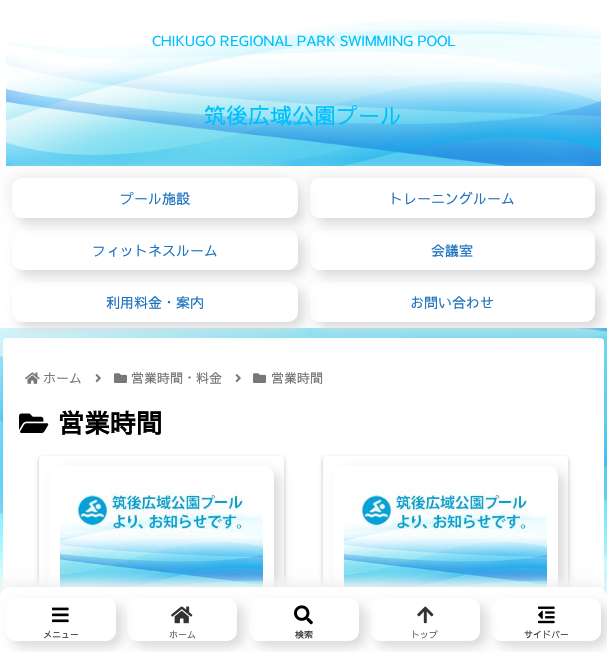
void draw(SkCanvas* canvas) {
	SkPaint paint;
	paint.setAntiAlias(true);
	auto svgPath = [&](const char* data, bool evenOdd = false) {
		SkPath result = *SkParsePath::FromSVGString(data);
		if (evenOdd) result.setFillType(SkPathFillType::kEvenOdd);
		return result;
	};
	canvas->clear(0xffffffff);
	canvas->drawImageRect(SkImages::DeferredFromEncodedData(SkData::MakeFromFileName("img1.png")), SkRect::MakeXYWH(0, 328, 607, 269), SkSamplingOptions());
	canvas->drawImageRect(SkImages::DeferredFromEncodedData(SkData::MakeFromFileName("img2.png")), SkRect::MakeXYWH(6, 20, 595, 146), SkSamplingOptions());
	SkFont f1(fontMgr->matchFamilyStyle("Sawarabi Gothic", SkFontStyle::Normal()), 14);
	f1.setSubpixel(true);
	paint.setColor(0xff00bfff);
	canvas->drawString("CHIKUGO REGIONAL PARK SWIMMING POOL", 152, 46, f1, paint);
	SkFont f2(fontMgr->matchFamilyStyle("Sawarabi Gothic", SkFontStyle::Normal()), 22);
	f2.setSubpixel(true);
	canvas->drawString("筑後広域公園プール", 204, 124, f2, paint);
	canvas->save();
	canvas->clipPath(svgPath("M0 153H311V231H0ZM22 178H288C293.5 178 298 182.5 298 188V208C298 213.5 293.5 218 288 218H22C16.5 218 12 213.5 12 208V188C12 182.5 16.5 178 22 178Z", true), true);
	paint.setColor(0xfff5f5f5);
	paint.setMaskFilter(SkMaskFilter::MakeBlur(kNormal_SkBlurStyle, 6));
	canvas->drawRoundRect(SkRect::MakeXYWH(6, 172, 286, 40), 10, 10, paint);
	paint.setMaskFilter(nullptr);
	canvas->restore();
	canvas->save();
	canvas->clipPath(svgPath("M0 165H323V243H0ZM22 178H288C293.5 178 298 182.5 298 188V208C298 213.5 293.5 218 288 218H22C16.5 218 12 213.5 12 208V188C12 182.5 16.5 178 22 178Z", true), true);
	paint.setColor(0xffd9d9d9);
	paint.setMaskFilter(SkMaskFilter::MakeBlur(kNormal_SkBlurStyle, 6));
	canvas->drawRoundRect(SkRect::MakeXYWH(18, 184, 286, 40), 10, 10, paint);
	paint.setMaskFilter(nullptr);
	canvas->restore();
	paint.setColor(0xff1e73be);
	canvas->drawString("プール施設", 120, 204, f1, paint);
	canvas->save();
	canvas->clipPath(svgPath("M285 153H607V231H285ZM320 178H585C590.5 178 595 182.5 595 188V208C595 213.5 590.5 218 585 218H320C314.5 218 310 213.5 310 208V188C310 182.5 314.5 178 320 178Z", true), true);
	paint.setColor(0xfff5f5f5);
	paint.setMaskFilter(SkMaskFilter::MakeBlur(kNormal_SkBlurStyle, 6));
	canvas->drawRoundRect(SkRect::MakeXYWH(304, 172, 285, 40), 10, 10, paint);
	paint.setMaskFilter(nullptr);
	canvas->restore();
	canvas->save();
	canvas->clipPath(svgPath("M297 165H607V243H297ZM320 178H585C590.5 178 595 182.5 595 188V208C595 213.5 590.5 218 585 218H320C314.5 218 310 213.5 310 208V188C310 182.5 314.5 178 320 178Z", true), true);
	paint.setColor(0xffd9d9d9);
	paint.setMaskFilter(SkMaskFilter::MakeBlur(kNormal_SkBlurStyle, 6));
	canvas->drawRoundRect(SkRect::MakeXYWH(316, 184, 285, 40), 10, 10, paint);
	paint.setMaskFilter(nullptr);
	canvas->restore();
	paint.setColor(0xff1e73be);
	canvas->drawString("トレーニングルーム", 389, 204, f1, paint);
	canvas->save();
	canvas->clipPath(svgPath("M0 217H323V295H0ZM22 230H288C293.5 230 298 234.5 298 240V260C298 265.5 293.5 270 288 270H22C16.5 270 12 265.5 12 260V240C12 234.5 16.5 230 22 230Z", true), true);
	paint.setColor(0xffd9d9d9);
	paint.setMaskFilter(SkMaskFilter::MakeBlur(kNormal_SkBlurStyle, 6));
	canvas->drawRoundRect(SkRect::MakeXYWH(18, 236, 286, 40), 10, 10, paint);
	paint.setMaskFilter(nullptr);
	canvas->restore();
	paint.setColor(0xff1e73be);
	canvas->drawString("フィットネスルーム", 92, 256, f1, paint);
	canvas->save();
	canvas->clipPath(svgPath("M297 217H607V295H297ZM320 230H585C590.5 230 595 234.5 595 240V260C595 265.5 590.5 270 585 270H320C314.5 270 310 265.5 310 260V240C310 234.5 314.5 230 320 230Z", true), true);
	paint.setColor(0xffd9d9d9);
	paint.setMaskFilter(SkMaskFilter::MakeBlur(kNormal_SkBlurStyle, 6));
	canvas->drawRoundRect(SkRect::MakeXYWH(316, 236, 285, 40), 10, 10, paint);
	paint.setMaskFilter(nullptr);
	canvas->restore();
	paint.setColor(0xff1e73be);
	canvas->drawString("会議室", 431, 256, f1, paint);
	canvas->save();
	canvas->clipPath(svgPath("M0 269H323V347H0ZM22 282H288C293.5 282 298 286.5 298 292V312C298 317.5 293.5 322 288 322H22C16.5 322 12 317.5 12 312V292C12 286.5 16.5 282 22 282Z", true), true);
	paint.setColor(0xffd9d9d9);
	paint.setMaskFilter(SkMaskFilter::MakeBlur(kNormal_SkBlurStyle, 6));
	canvas->drawRoundRect(SkRect::MakeXYWH(18, 288, 286, 40), 10, 10, paint);
	paint.setMaskFilter(nullptr);
	canvas->restore();
	paint.setColor(0xff1e73be);
	canvas->drawString("利用料金・案内", 106, 308, f1, paint);
	canvas->save();
	canvas->clipPath(svgPath("M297 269H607V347H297ZM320 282H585C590.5 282 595 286.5 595 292V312C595 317.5 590.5 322 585 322H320C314.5 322 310 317.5 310 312V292C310 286.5 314.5 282 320 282Z", true), true);
	paint.setColor(0xffd9d9d9);
	paint.setMaskFilter(SkMaskFilter::MakeBlur(kNormal_SkBlurStyle, 6));
	canvas->drawRoundRect(SkRect::MakeXYWH(316, 288, 285, 40), 10, 10, paint);
	paint.setMaskFilter(nullptr);
	canvas->restore();
	paint.setColor(0xff1e73be);
	canvas->drawString("お問い合わせ", 410, 308, f1, paint);
	paint.setColor(0xffffffff);
	canvas->drawRoundRect(SkRect::MakeXYWH(3, 338, 601, 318), 4, 4, paint);
	canvas->drawImageRect(SkImages::DeferredFromEncodedData(SkData::MakeFromFileName("img3.png")), SkRect::MakeXYWH(25, 372, 15, 12), SkSamplingOptions());
	SkFont f3(fontMgr->matchFamilyStyle("Sawarabi Gothic", SkFontStyle::Normal()), 13);
	f3.setSubpixel(true);
	paint.setColor(0xff777777);
	canvas->drawString("ホーム", 43, 383, f3, paint);
	canvas->drawImageRect(SkImages::DeferredFromEncodedData(SkData::MakeFromFileName("img4.png")), SkRect::MakeXYWH(95, 374, 6, 9), SkSamplingOptions());
	canvas->drawImageRect(SkImages::DeferredFromEncodedData(SkData::MakeFromFileName("img5.png")), SkRect::MakeXYWH(114, 373, 13, 10), SkSamplingOptions());
	canvas->drawString("営業時間・料金", 131, 383, f3, paint);
	canvas->drawImageRect(SkImages::DeferredFromEncodedData(SkData::MakeFromFileName("img4.png")), SkRect::MakeXYWH(235, 374, 6, 9), SkSamplingOptions());
	canvas->drawImageRect(SkImages::DeferredFromEncodedData(SkData::MakeFromFileName("img5.png")), SkRect::MakeXYWH(253, 373, 13, 10), SkSamplingOptions());
	canvas->drawString("営業時間", 271, 383, f3, paint);
	canvas->drawImageRect(SkImages::DeferredFromEncodedData(SkData::MakeFromFileName("img6.png")), SkRect::MakeXYWH(19, 413, 30, 20), SkSamplingOptions());
	SkFont f4(fontMgr->matchFamilyStyle("Sawarabi Gothic", SkFontStyle::Bold()), 26);
	f4.setSubpixel(true);
	paint.setColor(0xff000000);
	canvas->drawString("営業時間", 58, 433, f4, paint);
	canvas->save();
	canvas->clipPath(svgPath("M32 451H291V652H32ZM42 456H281C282.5 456 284 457.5 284 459V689C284 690.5 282.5 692 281 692H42C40.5 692 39 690.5 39 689V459C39 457.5 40.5 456 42 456Z", true), true);
	paint.setColor(0x40000000);
	paint.setMaskFilter(SkMaskFilter::MakeBlur(kNormal_SkBlurStyle, 2));
	canvas->drawRoundRect(SkRect::MakeXYWH(39, 458, 245, 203), 3, 3, paint);
	paint.setMaskFilter(nullptr);
	canvas->restore();
	canvas->save();
	canvas->clipPath(svgPath("M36 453H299V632H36ZM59 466H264C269.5 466 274 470.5 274 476V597C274 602.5 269.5 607 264 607H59C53.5 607 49 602.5 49 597V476C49 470.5 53.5 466 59 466Z", true), true);
	paint.setColor(0xffd9d9d9);
	paint.setMaskFilter(SkMaskFilter::MakeBlur(kNormal_SkBlurStyle, 6));
	canvas->drawRoundRect(SkRect::MakeXYWH(55, 472, 225, 141), 10, 10, paint);
	paint.setMaskFilter(nullptr);
	canvas->restore();
	canvas->drawImageRect(SkImages::DeferredFromEncodedData(SkData::MakeFromFileName("img7.png")), SkRect::MakeXYWH(60, 486, 203, 101), SkSamplingOptions());
	canvas->save();
	canvas->clipPath(svgPath("M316 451H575V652H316ZM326 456H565C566.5 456 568 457.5 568 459V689C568 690.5 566.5 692 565 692H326C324.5 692 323 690.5 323 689V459C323 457.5 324.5 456 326 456Z", true), true);
	paint.setColor(0x40000000);
	paint.setMaskFilter(SkMaskFilter::MakeBlur(kNormal_SkBlurStyle, 2));
	canvas->drawRoundRect(SkRect::MakeXYWH(323, 458, 245, 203), 3, 3, paint);
	paint.setMaskFilter(nullptr);
	canvas->restore();
	canvas->save();
	canvas->clipPath(svgPath("M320 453H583V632H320ZM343 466H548C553.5 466 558 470.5 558 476V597C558 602.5 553.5 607 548 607H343C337.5 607 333 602.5 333 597V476C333 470.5 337.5 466 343 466Z", true), true);
	paint.setColor(0xffd9d9d9);
	paint.setMaskFilter(SkMaskFilter::MakeBlur(kNormal_SkBlurStyle, 6));
	canvas->drawRoundRect(SkRect::MakeXYWH(339, 472, 225, 141), 10, 10, paint);
	paint.setMaskFilter(nullptr);
	canvas->restore();
	canvas->drawImageRect(SkImages::DeferredFromEncodedData(SkData::MakeFromFileName("img7.png")), SkRect::MakeXYWH(344, 486, 203, 101), SkSamplingOptions());
	paint.setColor(0xfff5f5f5);
	paint.setMaskFilter(SkMaskFilter::MakeBlur(kNormal_SkBlurStyle, 6));
	canvas->drawRoundRect(SkRect::MakeXYWH(-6, 581, 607, 65), 10, 10, paint);
	paint.setMaskFilter(nullptr);
	paint.setColor(0xffd9d9d9);
	paint.setMaskFilter(SkMaskFilter::MakeBlur(kNormal_SkBlurStyle, 6));
	canvas->drawRoundRect(SkRect::MakeXYWH(6, 593, 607, 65), 10, 10, paint);
	paint.setMaskFilter(nullptr);
	paint.setColor(0xffffffff);
	canvas->drawPath(svgPath("M10 587H597C602.5 587 607 591.5 607 597V652H0V597C0 591.5 4.5 587 10 587Z"), paint);
	canvas->save();
	canvas->clipPath(svgPath("M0 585H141V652H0ZM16 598H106C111.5 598 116 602.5 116 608V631C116 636.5 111.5 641 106 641H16C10.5 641 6 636.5 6 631V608C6 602.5 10.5 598 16 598Z", true), true);
	paint.setColor(0xffd9d9d9);
	paint.setMaskFilter(SkMaskFilter::MakeBlur(kNormal_SkBlurStyle, 6));
	canvas->drawRoundRect(SkRect::MakeXYWH(12, 604, 110, 43), 10, 10, paint);
	paint.setMaskFilter(nullptr);
	canvas->restore();
	canvas->drawImageRect(SkImages::DeferredFromEncodedData(SkData::MakeFromFileName("img8.png")), SkRect::MakeXYWH(52, 607, 17, 16), SkSamplingOptions());
	SkFont f5(fontMgr->matchFamilyStyle("Sawarabi Gothic", SkFontStyle::Normal()), 9);
	f5.setSubpixel(true);
	paint.setColor(0xff333333);
	canvas->drawString("メニュー", 43, 638, f5, paint);
	canvas->save();
	canvas->clipPath(svgPath("M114 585H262V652H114ZM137 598H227C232.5 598 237 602.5 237 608V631C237 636.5 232.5 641 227 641H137C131.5 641 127 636.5 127 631V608C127 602.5 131.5 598 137 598Z", true), true);
	paint.setColor(0xffd9d9d9);
	paint.setMaskFilter(SkMaskFilter::MakeBlur(kNormal_SkBlurStyle, 6));
	canvas->drawRoundRect(SkRect::MakeXYWH(133, 604, 110, 43), 10, 10, paint);
	paint.setMaskFilter(nullptr);
	canvas->restore();
	canvas->drawImageRect(SkImages::DeferredFromEncodedData(SkData::MakeFromFileName("img9.png")), SkRect::MakeXYWH(171, 606, 22, 18), SkSamplingOptions());
	paint.setColor(0xff5c5c5c);
	canvas->drawString("ホーム", 169, 638, f5, paint);
	canvas->save();
	canvas->clipPath(svgPath("M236 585H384V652H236ZM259 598H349C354.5 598 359 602.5 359 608V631C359 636.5 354.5 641 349 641H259C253.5 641 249 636.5 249 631V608C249 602.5 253.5 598 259 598Z", true), true);
	paint.setColor(0xffd9d9d9);
	paint.setMaskFilter(SkMaskFilter::MakeBlur(kNormal_SkBlurStyle, 6));
	canvas->drawRoundRect(SkRect::MakeXYWH(255, 604, 110, 43), 10, 10, paint);
	paint.setMaskFilter(nullptr);
	canvas->restore();
	canvas->drawImageRect(SkImages::DeferredFromEncodedData(SkData::MakeFromFileName("img10.png")), SkRect::MakeXYWH(294, 605, 19, 20), SkSamplingOptions());
	paint.setColor(0xff333333);
	canvas->drawString("検索", 295, 638, f5, paint);
	canvas->save();
	canvas->clipPath(svgPath("M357 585H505V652H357ZM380 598H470C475.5 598 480 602.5 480 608V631C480 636.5 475.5 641 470 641H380C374.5 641 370 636.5 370 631V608C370 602.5 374.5 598 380 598Z", true), true);
	paint.setColor(0xffd9d9d9);
	paint.setMaskFilter(SkMaskFilter::MakeBlur(kNormal_SkBlurStyle, 6));
	canvas->drawRoundRect(SkRect::MakeXYWH(376, 604, 110, 43), 10, 10, paint);
	paint.setMaskFilter(nullptr);
	canvas->restore();
	canvas->drawImageRect(SkImages::DeferredFromEncodedData(SkData::MakeFromFileName("img11.png")), SkRect::MakeXYWH(417, 606, 17, 18), SkSamplingOptions());
	paint.setColor(0xff5c5c5c);
	canvas->drawString("トップ", 411, 638, f5, paint);
	canvas->save();
	canvas->clipPath(svgPath("M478 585H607V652H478ZM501 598H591C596.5 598 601 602.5 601 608V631C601 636.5 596.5 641 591 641H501C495.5 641 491 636.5 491 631V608C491 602.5 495.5 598 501 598Z", true), true);
	paint.setColor(0xffd9d9d9);
	paint.setMaskFilter(SkMaskFilter::MakeBlur(kNormal_SkBlurStyle, 6));
	canvas->drawRoundRect(SkRect::MakeXYWH(497, 604, 110, 43), 10, 10, paint);
	paint.setMaskFilter(nullptr);
	canvas->restore();
	canvas->drawImageRect(SkImages::DeferredFromEncodedData(SkData::MakeFromFileName("img12.png")), SkRect::MakeXYWH(538, 606, 17, 18), SkSamplingOptions());
	paint.setColor(0xff333333);
	canvas->drawString("サイドバー", 524, 638, f5, paint);
}
